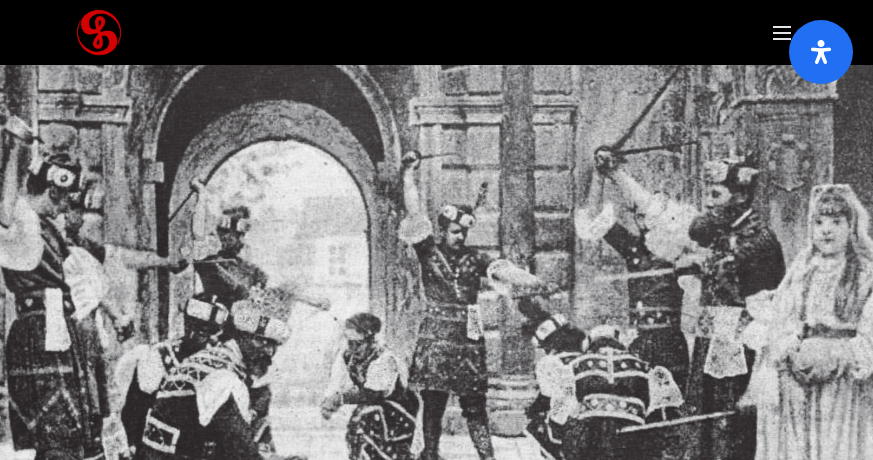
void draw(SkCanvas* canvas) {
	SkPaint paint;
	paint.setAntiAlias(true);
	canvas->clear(0xffffffff);
	paint.setColor(0xff000000);
	canvas->drawRect(SkRect::MakeXYWH(0, 0, 873, 65), paint);
	canvas->drawImageRect(SkImages::DeferredFromEncodedData(SkData::MakeFromFileName("img1.png")), SkRect::MakeXYWH(77, 9, 44, 47), SkSamplingOptions());
	paint.setColor(0xffe6e6e6);
	canvas->drawRect(SkRect::MakeXYWH(773, 32, 18, 2), paint);
	canvas->drawRect(SkRect::MakeXYWH(773, 26, 18, 2), paint);
	canvas->drawRect(SkRect::MakeXYWH(773, 38, 18, 2), paint);
	canvas->drawImageRect(SkImages::DeferredFromEncodedData(SkData::MakeFromFileName("img2.png")), SkRect::MakeXYWH(0, 65, 873, 395), SkSamplingOptions());
	paint.setColor(0xff216ff3);
	canvas->drawCircle(821, 52, 32, paint);
	canvas->drawImageRect(SkImages::DeferredFromEncodedData(SkData::MakeFromFileName("img3.png")), SkRect::MakeXYWH(811, 40, 20, 24), SkSamplingOptions());
}
